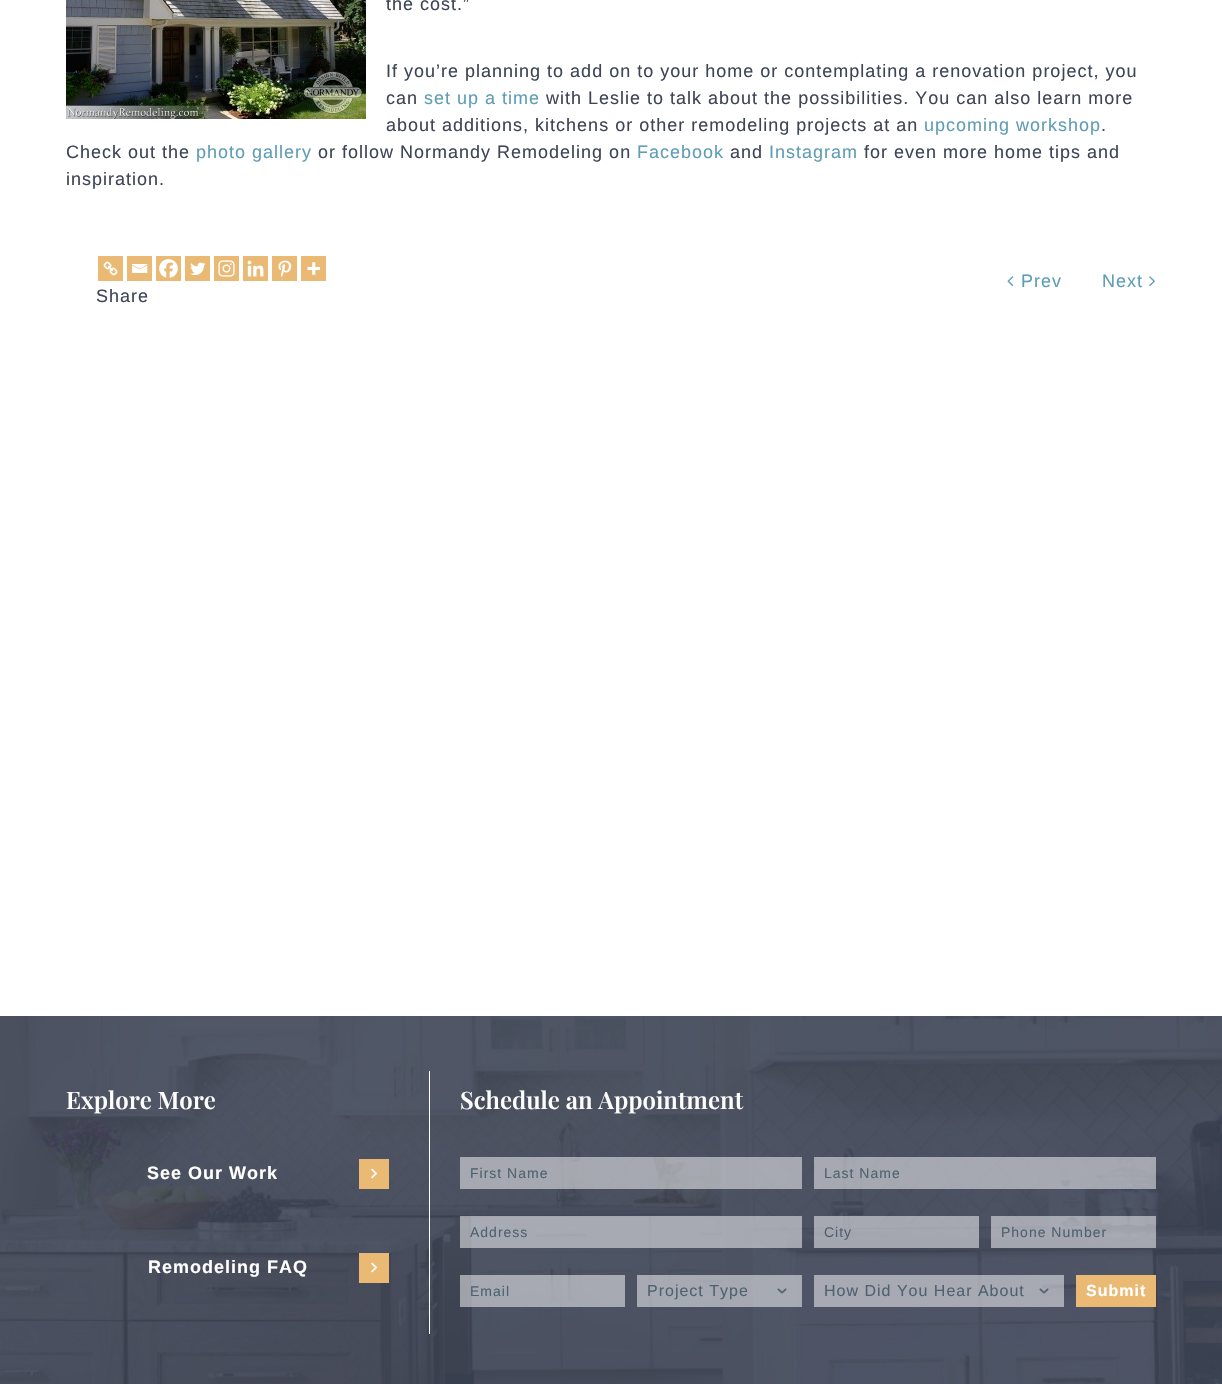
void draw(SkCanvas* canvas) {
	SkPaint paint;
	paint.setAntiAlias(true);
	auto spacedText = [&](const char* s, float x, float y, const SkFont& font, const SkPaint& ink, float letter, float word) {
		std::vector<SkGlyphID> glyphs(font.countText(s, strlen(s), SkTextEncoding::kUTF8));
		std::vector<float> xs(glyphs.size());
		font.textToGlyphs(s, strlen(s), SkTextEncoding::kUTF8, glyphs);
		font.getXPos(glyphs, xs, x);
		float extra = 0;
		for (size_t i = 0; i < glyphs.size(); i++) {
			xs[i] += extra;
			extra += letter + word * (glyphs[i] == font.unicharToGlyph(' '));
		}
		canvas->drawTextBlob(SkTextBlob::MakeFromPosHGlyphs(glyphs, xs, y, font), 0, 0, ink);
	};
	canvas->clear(0xffffffff);
	canvas->drawImageRect(SkImages::DeferredFromEncodedData(SkData::MakeFromFileName("img1.png")), SkRect::MakeXYWH(66, 0, 300, 119), SkSamplingOptions());
	SkFont f1(fontMgr->matchFamilyStyle("Liberation Sans", SkFontStyle::Normal()), 18);
	f1.setSubpixel(true);
	paint.setColor(0xff3e4556);
	spacedText("the cost.”", 386, 10, f1, paint, 1, 0);
	spacedText("If you’re planning to add on to your home or contemplating a renovation project, you", 386, 77, f1, paint, 1, 0);
	spacedText("can", 386, 104, f1, paint, 1, 0);
	paint.setColor(0xff5f9db6);
	spacedText("set up a time", 424, 104, f1, paint, 1, 0);
	paint.setColor(0xff3e4556);
	spacedText("with Leslie to talk about the possibilities. You can also learn more", 546, 104, f1, paint, 1, 0);
	spacedText("about additions, kitchens or other remodeling projects at an", 386, 131, f1, paint, 1, 0);
	paint.setColor(0xff5f9db6);
	spacedText("upcoming workshop", 924, 131, f1, paint, 1, 0);
	paint.setColor(0xff3e4556);
	spacedText(".", 1101, 131, f1, paint, 1, 0);
	spacedText("Check out the", 66, 158, f1, paint, 1, 0);
	paint.setColor(0xff5f9db6);
	spacedText("photo gallery", 196, 158, f1, paint, 1, 0);
	paint.setColor(0xff3e4556);
	spacedText("or follow Normandy Remodeling on", 318, 158, f1, paint, 1, 0);
	paint.setColor(0xff5f9db6);
	spacedText("Facebook", 637, 158, f1, paint, 1, 0);
	paint.setColor(0xff3e4556);
	spacedText("and", 730, 158, f1, paint, 1, 0);
	paint.setColor(0xff5f9db6);
	spacedText("Instagram", 769, 158, f1, paint, 1, 0);
	paint.setColor(0xff3e4556);
	spacedText("for even more home tips and", 864, 158, f1, paint, 1, 0);
	spacedText("inspiration.", 66, 185, f1, paint, 1, 0);
	canvas->drawImageRect(SkImages::DeferredFromEncodedData(SkData::MakeFromFileName("img2.png")), SkRect::MakeXYWH(1007, 276, 7, 11), SkSamplingOptions());
	paint.setColor(0xff5f9db6);
	spacedText("Prev", 1021, 287, f1, paint, 1, 0);
	spacedText("Next", 1102, 287, f1, paint, 1, 0);
	canvas->drawImageRect(SkImages::DeferredFromEncodedData(SkData::MakeFromFileName("img3.png")), SkRect::MakeXYWH(1149, 276, 6, 11), SkSamplingOptions());
	paint.setColor(0xffeaba75);
	canvas->drawRect(SkRect::MakeXYWH(98, 256, 25, 25), paint);
	canvas->drawImageRect(SkImages::DeferredFromEncodedData(SkData::MakeFromFileName("img4.png")), SkRect::MakeXYWH(103, 261, 15, 15), SkSamplingOptions());
	canvas->drawRect(SkRect::MakeXYWH(127, 256, 25, 25), paint);
	canvas->drawImageRect(SkImages::DeferredFromEncodedData(SkData::MakeFromFileName("img5.png")), SkRect::MakeXYWH(132, 264, 16, 9), SkSamplingOptions());
	canvas->drawRect(SkRect::MakeXYWH(156, 256, 25, 25), paint);
	canvas->drawImageRect(SkImages::DeferredFromEncodedData(SkData::MakeFromFileName("img6.png")), SkRect::MakeXYWH(159, 259, 19, 19), SkSamplingOptions());
	canvas->drawRect(SkRect::MakeXYWH(185, 256, 25, 25), paint);
	canvas->drawImageRect(SkImages::DeferredFromEncodedData(SkData::MakeFromFileName("img7.png")), SkRect::MakeXYWH(190, 262, 16, 14), SkSamplingOptions());
	canvas->drawRect(SkRect::MakeXYWH(214, 256, 25, 25), paint);
	canvas->drawImageRect(SkImages::DeferredFromEncodedData(SkData::MakeFromFileName("img8.png")), SkRect::MakeXYWH(218, 260, 17, 17), SkSamplingOptions());
	canvas->drawRect(SkRect::MakeXYWH(243, 256, 25, 25), paint);
	canvas->drawImageRect(SkImages::DeferredFromEncodedData(SkData::MakeFromFileName("img9.png")), SkRect::MakeXYWH(247, 260, 17, 17), SkSamplingOptions());
	canvas->drawRect(SkRect::MakeXYWH(272, 256, 25, 25), paint);
	canvas->drawImageRect(SkImages::DeferredFromEncodedData(SkData::MakeFromFileName("img10.png")), SkRect::MakeXYWH(278, 260, 14, 17), SkSamplingOptions());
	canvas->drawRect(SkRect::MakeXYWH(301, 256, 25, 25), paint);
	canvas->drawImageRect(SkImages::DeferredFromEncodedData(SkData::MakeFromFileName("img11.png")), SkRect::MakeXYWH(307, 262, 13, 13), SkSamplingOptions());
	paint.setColor(0xff3e4556);
	spacedText("Share", 96, 302, f1, paint, 1, 0);
	canvas->drawImageRect(SkImages::DeferredFromEncodedData(SkData::MakeFromFileName("img12.png")), SkRect::MakeXYWH(0, 1016, 1222, 368), SkSamplingOptions());
	SkFont f2(fontMgr->matchFamilyStyle("Playfair Display", SkFontStyle(600, SkFontStyle::kNormal_Width, SkFontStyle::kUpright_Slant)), 24);
	f2.setSubpixel(true);
	paint.setColor(0xffffffff);
	canvas->drawString("Explore More", 66, 1109, f2, paint);
	SkFont f3(fontMgr->matchFamilyStyle("Liberation Sans", SkFontStyle::Bold()), 18);
	f3.setSubpixel(true);
	spacedText("See Our Work", 147, 1179, f3, paint, 1, 0);
	paint.setColor(0xffeaba75);
	canvas->drawRect(SkRect::MakeXYWH(359, 1159, 30, 30), paint);
	canvas->drawImageRect(SkImages::DeferredFromEncodedData(SkData::MakeFromFileName("img13.png")), SkRect::MakeXYWH(371, 1168, 7, 11), SkSamplingOptions());
	paint.setColor(0xffffffff);
	spacedText("Remodeling FAQ", 148, 1273, f3, paint, 1, 0);
	paint.setColor(0xffeaba75);
	canvas->drawRect(SkRect::MakeXYWH(359, 1253, 30, 30), paint);
	canvas->drawImageRect(SkImages::DeferredFromEncodedData(SkData::MakeFromFileName("img13.png")), SkRect::MakeXYWH(371, 1262, 7, 11), SkSamplingOptions());
	paint.setColor(0xffffffff);
	canvas->drawRect(SkRect::MakeXYWH(429, 1071, 1, 263), paint);
	canvas->drawString("Schedule an Appointment", 460, 1109, f2, paint);
	paint.setColor(0x80ffffff);
	canvas->drawRect(SkRect::MakeXYWH(460, 1157, 342, 32), paint);
	SkFont f4(fontMgr->matchFamilyStyle("Liberation Sans", SkFontStyle::Normal()), 14);
	f4.setSubpixel(true);
	paint.setColor(0xff4f616f);
	spacedText("First Name", 470, 1178, f4, paint, 1, 0);
	paint.setColor(0x80ffffff);
	canvas->drawRect(SkRect::MakeXYWH(814, 1157, 342, 32), paint);
	paint.setColor(0xff4f616f);
	spacedText("Last Name", 824, 1178, f4, paint, 1, 0);
	paint.setColor(0x80ffffff);
	canvas->drawRect(SkRect::MakeXYWH(460, 1216, 342, 32), paint);
	paint.setColor(0xff4f616f);
	spacedText("Address", 470, 1237, f4, paint, 1, 0);
	paint.setColor(0x80ffffff);
	canvas->drawRect(SkRect::MakeXYWH(814, 1216, 165, 32), paint);
	paint.setColor(0xff4f616f);
	spacedText("City", 824, 1237, f4, paint, 1, 0);
	paint.setColor(0x80ffffff);
	canvas->drawRect(SkRect::MakeXYWH(991, 1216, 165, 32), paint);
	paint.setColor(0xff4f616f);
	spacedText("Phone Number", 1001, 1237, f4, paint, 1, 0);
	paint.setColor(0x80ffffff);
	canvas->drawRect(SkRect::MakeXYWH(460, 1275, 165, 32), paint);
	paint.setColor(0xff4f616f);
	spacedText("Email", 470, 1296, f4, paint, 1, 0);
	paint.setColor(0x80ffffff);
	canvas->drawRect(SkRect::MakeXYWH(637, 1275, 165, 32), paint);
	canvas->drawImageRect(SkImages::DeferredFromEncodedData(SkData::MakeFromFileName("img14.png")), SkRect::MakeXYWH(777, 1288, 10, 6), SkSamplingOptions());
	SkFont f5(fontMgr->matchFamilyStyle("Liberation Sans", SkFontStyle::Normal()), 16);
	f5.setSubpixel(true);
	paint.setColor(0xff4f616f);
	spacedText("Project Type", 647, 1296, f5, paint, 1, 0);
	paint.setColor(0x80ffffff);
	canvas->drawRect(SkRect::MakeXYWH(814, 1275, 250, 32), paint);
	canvas->drawImageRect(SkImages::DeferredFromEncodedData(SkData::MakeFromFileName("img15.png")), SkRect::MakeXYWH(1039, 1288, 10, 6), SkSamplingOptions());
	paint.setColor(0xff4f616f);
	spacedText("How Did You Hear About", 824, 1296, f5, paint, 1, 0);
	paint.setColor(0xffeaba75);
	canvas->drawRect(SkRect::MakeXYWH(1076, 1275, 80, 32), paint);
	SkFont f6(fontMgr->matchFamilyStyle("Liberation Sans", SkFontStyle::Bold()), 16);
	f6.setSubpixel(true);
	paint.setColor(0xffffffff);
	spacedText("Submit", 1086, 1296, f6, paint, 1, 0);
}
